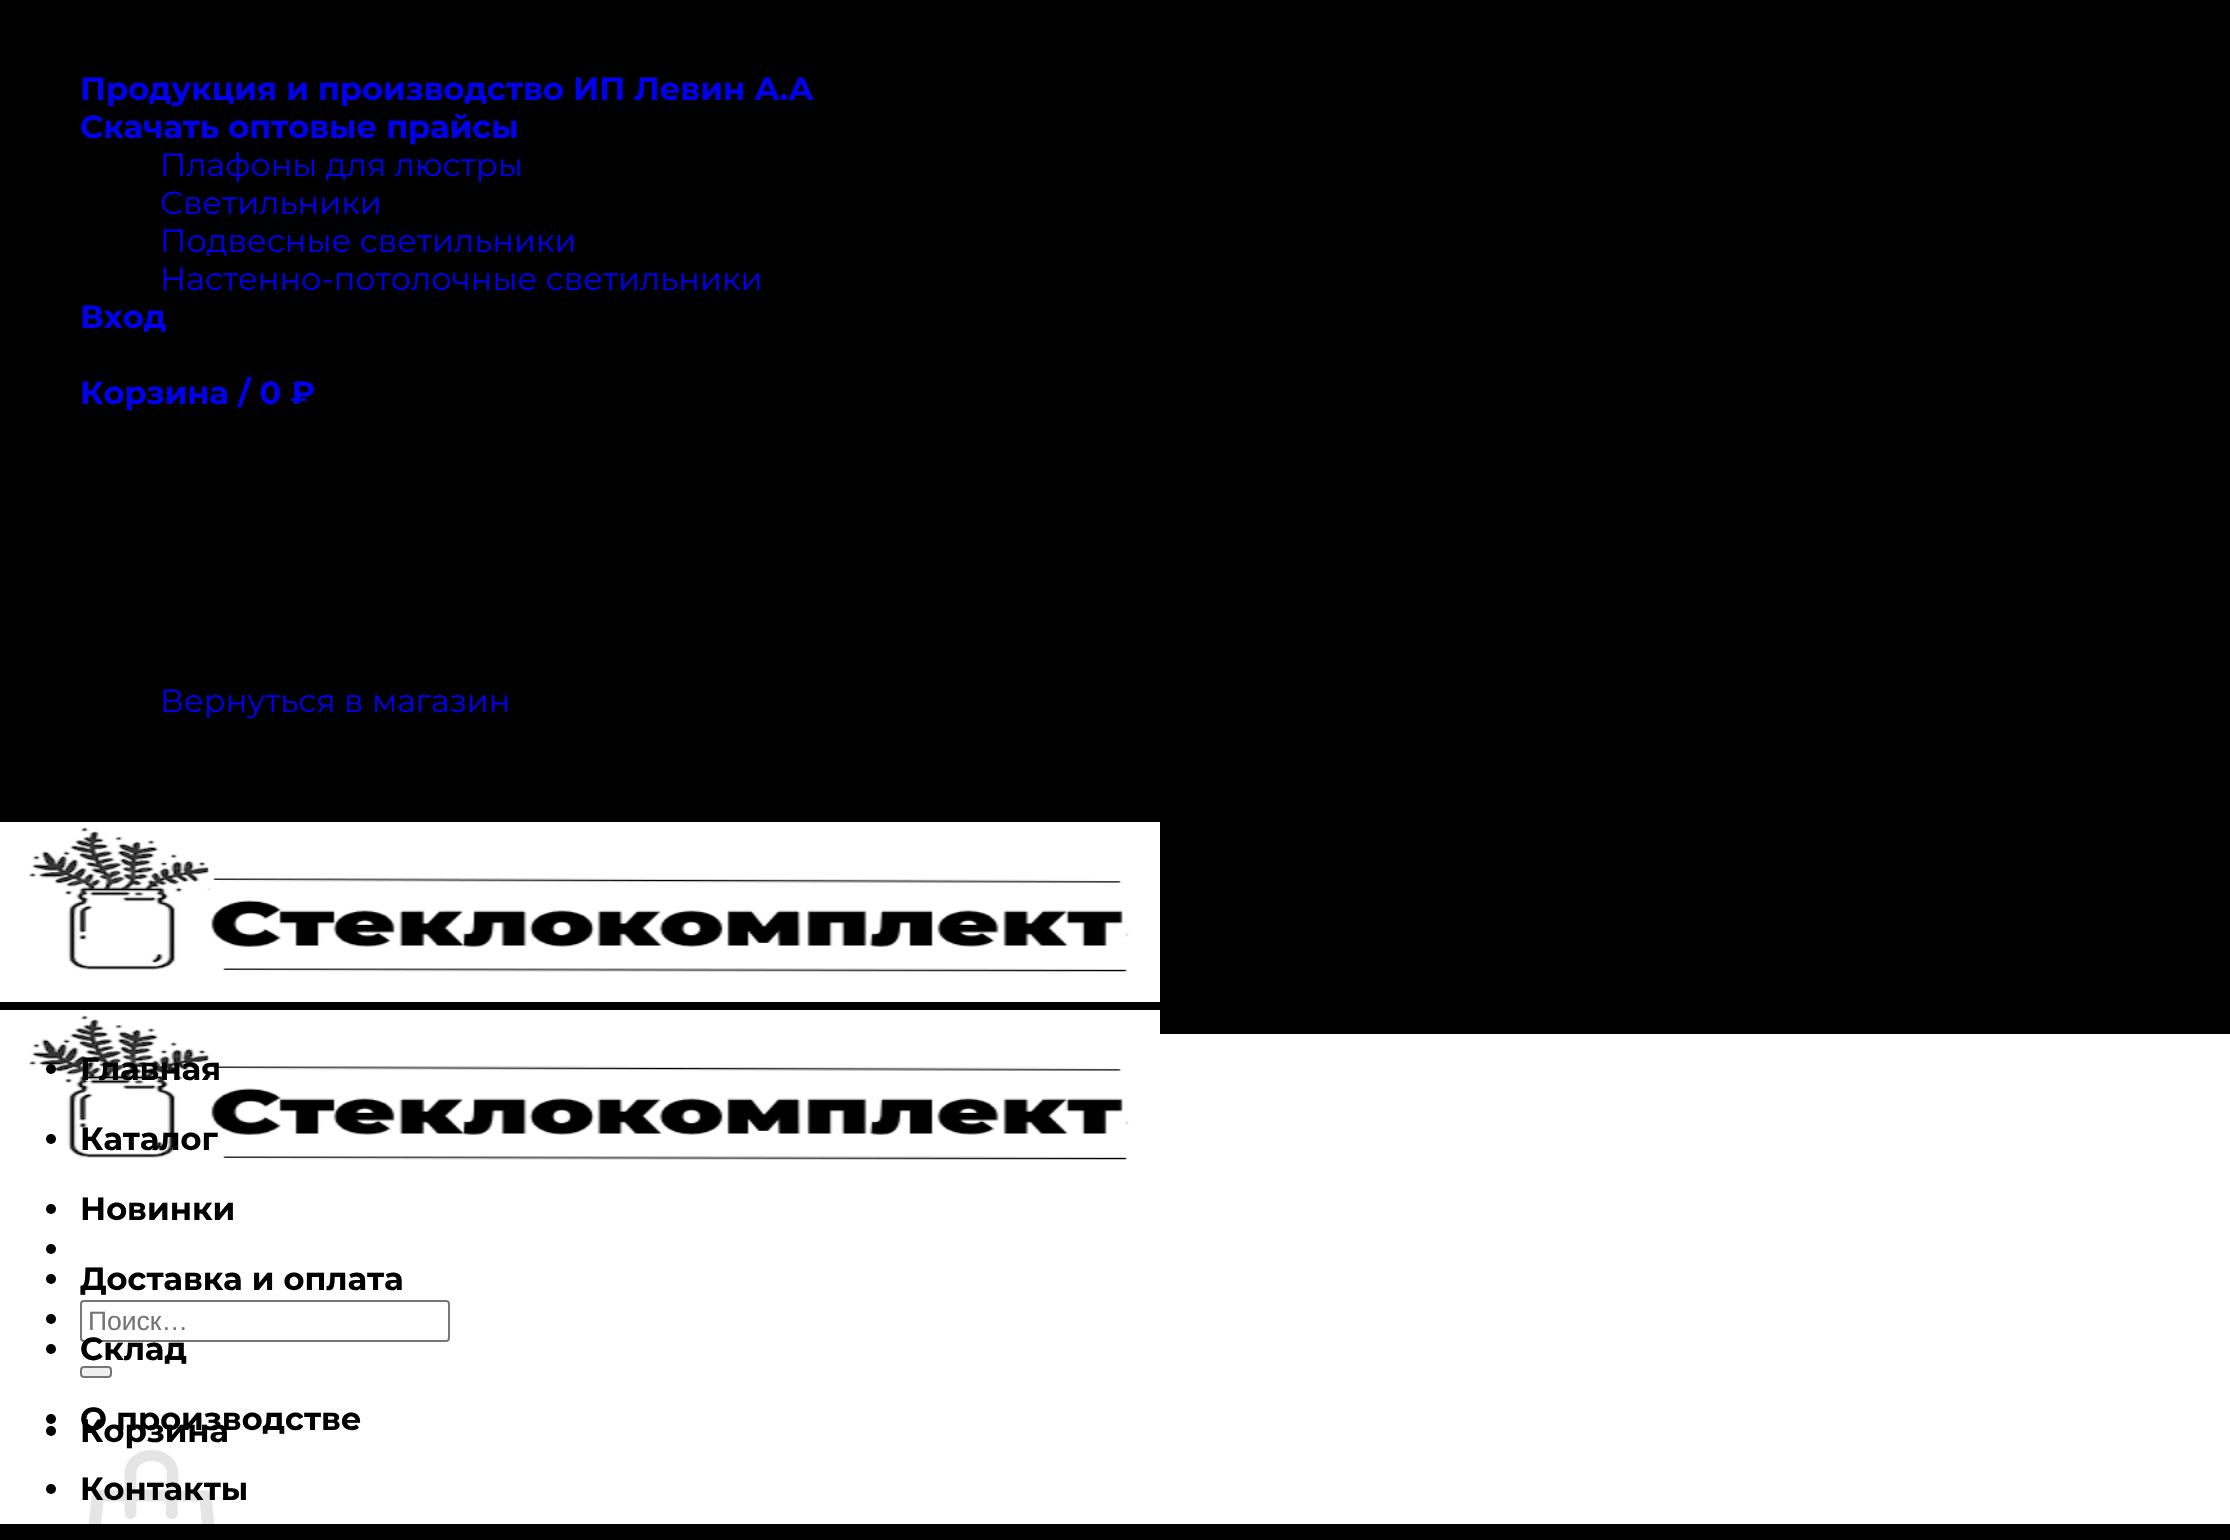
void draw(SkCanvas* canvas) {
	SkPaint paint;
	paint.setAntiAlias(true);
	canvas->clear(0xff000000);
	SkFont f1(fontMgr->matchFamilyStyle("Montserrat", SkFontStyle::Bold()), 32);
	f1.setSubpixel(true);
	paint.setColor(0xff0000ee);
	canvas->drawString("Продукция и производство ИП Левин А.А", 80, 100, f1, paint);
	canvas->drawString("Скачать оптовые прайсы", 80, 138, f1, paint);
	SkFont f2(fontMgr->matchFamilyStyle("Montserrat", SkFontStyle::Normal()), 32);
	f2.setSubpixel(true);
	canvas->drawString("Плафоны для люстры", 160, 176, f2, paint);
	canvas->drawString("Светильники", 160, 214, f2, paint);
	canvas->drawString("Подвесные светильники", 160, 252, f2, paint);
	canvas->drawString("Настенно-потолочные светильники", 160, 290, f2, paint);
	canvas->drawString("Вход", 80, 328, f1, paint);
	canvas->drawString("Корзина / 0 ₽", 80, 404, f1, paint);
	canvas->drawString("Вернуться в магазин", 160, 712, f2, paint);
	paint.setColor(0xffffffff);
	canvas->drawRect(SkRect::MakeXYWH(0, 1034, 2230, 490), paint);
	canvas->drawImageRect(SkImages::DeferredFromEncodedData(SkData::MakeFromFileName("img2.png")), SkRect::MakeXYWH(0, 1010, 1160, 150), SkSamplingOptions());
	paint.setColor(0xff000000);
	canvas->drawCircle(51, 1069, 5, paint);
	canvas->drawString("Главная", 80, 1080, f1, paint);
	canvas->drawCircle(51, 1139, 5, paint);
	canvas->drawString("Каталог", 80, 1150, f1, paint);
	canvas->drawCircle(51, 1209, 5, paint);
	canvas->drawString("Новинки", 80, 1220, f1, paint);
	canvas->drawCircle(51, 1279, 5, paint);
	canvas->drawString("Доставка и оплата", 80, 1290, f1, paint);
	canvas->drawCircle(51, 1349, 5, paint);
	paint.setStroke(true);
	paint.setStrokeWidth(2);
	paint.setColor(0xff767676);
	canvas->drawRoundRect(SkRect::MakeXYWH(81, 1301, 368, 40), 3, 3, paint);
	paint.setStroke(false);
	paint.setColor(0xff000000);
	canvas->drawString("Склад", 80, 1360, f1, paint);
	canvas->drawCircle(51, 1419, 5, paint);
	canvas->drawString("Корзина", 80, 1442, f1, paint);
	canvas->drawString("О производстве", 80, 1430, f1, paint);
	canvas->drawCircle(51, 1489, 5, paint);
	canvas->drawString("Контакты", 80, 1500, f1, paint);
	canvas->drawImageRect(SkImages::DeferredFromEncodedData(SkData::MakeFromFileName("img1.png")), SkRect::MakeXYWH(0, 822, 1160, 180), SkSamplingOptions());
	canvas->drawCircle(51, 1249, 5, paint);
	canvas->drawCircle(51, 1319, 5, paint);
	SkFont f3(fontMgr->matchFamilyStyle("Liberation Sans", SkFontStyle::Normal()), 26.5);
	f3.setSubpixel(true);
	paint.setColor(0xff757575);
	canvas->drawString("Поиск…", 88, 1330, f3, paint);
	paint.setColor(0xffefefef);
	canvas->drawRoundRect(SkRect::MakeXYWH(81, 1367, 30, 10), 3, 3, paint);
	paint.setStroke(true);
	paint.setColor(0xff767676);
	canvas->drawRoundRect(SkRect::MakeXYWH(81, 1367, 30, 10), 3, 3, paint);
	paint.setStroke(false);
	paint.setColor(0xff000000);
	canvas->drawCircle(51, 1431, 5, paint);
	canvas->drawImageRect(SkImages::DeferredFromEncodedData(SkData::MakeFromFileName("img3.png")), SkRect::MakeXYWH(88, 1450, 127, 74), SkSamplingOptions());
}
